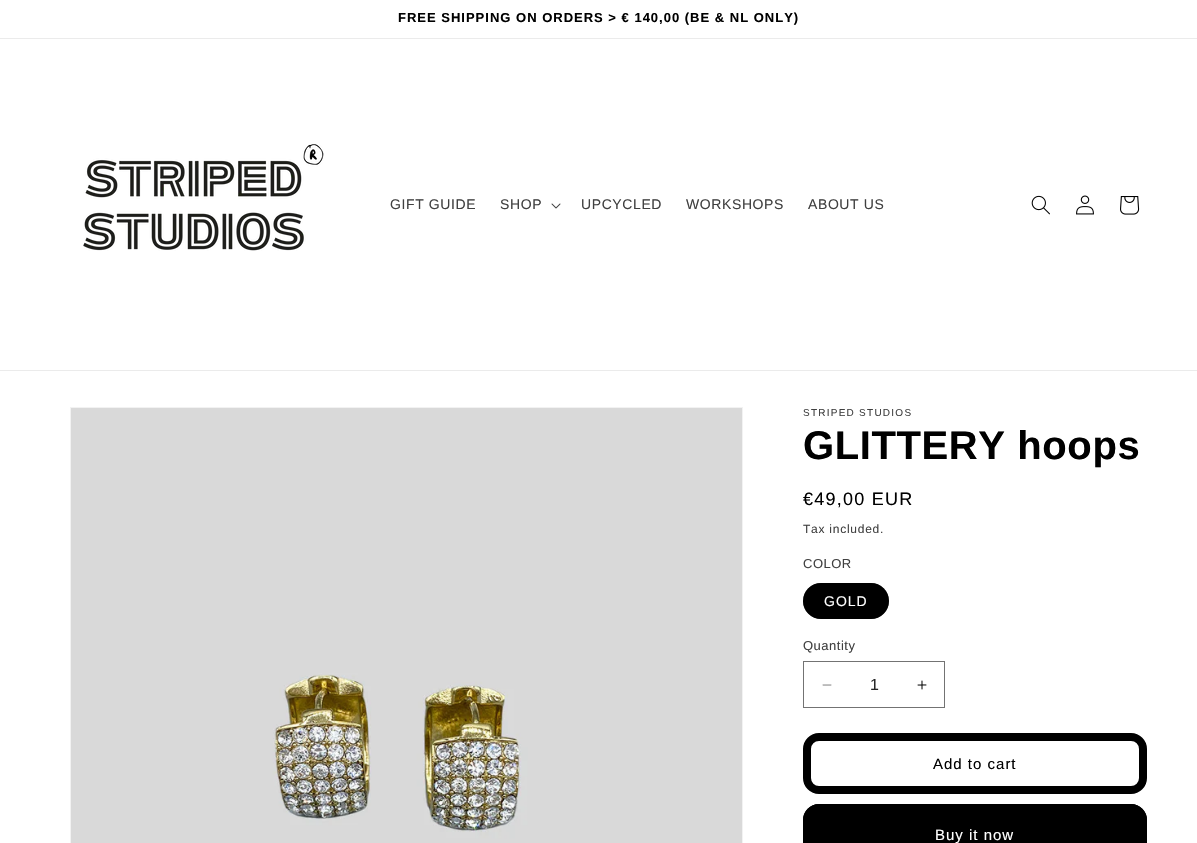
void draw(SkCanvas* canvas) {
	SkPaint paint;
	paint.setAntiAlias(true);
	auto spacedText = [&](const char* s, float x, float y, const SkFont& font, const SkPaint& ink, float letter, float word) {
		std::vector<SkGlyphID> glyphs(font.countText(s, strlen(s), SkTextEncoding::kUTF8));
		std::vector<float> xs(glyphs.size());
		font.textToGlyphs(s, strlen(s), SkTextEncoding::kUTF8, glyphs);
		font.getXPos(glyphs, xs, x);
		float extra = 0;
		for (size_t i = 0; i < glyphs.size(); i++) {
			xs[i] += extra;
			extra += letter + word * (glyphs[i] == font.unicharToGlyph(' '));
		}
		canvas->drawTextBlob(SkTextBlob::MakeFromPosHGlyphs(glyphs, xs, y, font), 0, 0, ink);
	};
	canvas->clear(0xffffffff);
	paint.setColor(0xffebebeb);
	canvas->drawRect(SkRect::MakeXYWH(0, 38, 1197, 1), paint);
	SkFont f1(fontMgr->matchFamilyStyle("Arimo", SkFontStyle::Bold()), 13);
	f1.setSubpixel(true);
	paint.setColor(0xff000000);
	spacedText("FREE SHIPPING ON ORDERS > € 140,00 (BE & NL ONLY)", 398, 22, f1, paint, 1, 0);
	paint.setColor(0xffebebeb);
	canvas->drawRect(SkRect::MakeXYWH(0, 370, 1197, 1), paint);
	canvas->drawImageRect(SkImages::DeferredFromEncodedData(SkData::MakeFromFileName("img1.png")), SkRect::MakeXYWH(83, 144, 241, 107), SkSamplingOptions());
	SkFont f2(fontMgr->matchFamilyStyle("Arimo", SkFontStyle::Normal()), 14);
	f2.setSubpixel(true);
	paint.setColor(0xff404040);
	spacedText("GIFT GUIDE", 390, 209, f2, paint, 0.6, 0);
	spacedText("SHOP", 500, 209, f2, paint, 0.6, 0);
	canvas->drawImageRect(SkImages::DeferredFromEncodedData(SkData::MakeFromFileName("img2.png")), SkRect::MakeXYWH(551, 203, 10, 6), SkSamplingOptions());
	spacedText("UPCYCLED", 581, 209, f2, paint, 0.6, 0);
	spacedText("WORKSHOPS", 686, 209, f2, paint, 0.6, 0);
	spacedText("ABOUT US", 808, 209, f2, paint, 0.6, 0);
	canvas->drawImageRect(SkImages::DeferredFromEncodedData(SkData::MakeFromFileName("img3.png")), SkRect::MakeXYWH(1031, 195, 19, 20), SkSamplingOptions());
	canvas->drawImageRect(SkImages::DeferredFromEncodedData(SkData::MakeFromFileName("img4.png")), SkRect::MakeXYWH(1076, 195, 18, 20), SkSamplingOptions());
	canvas->drawImageRect(SkImages::DeferredFromEncodedData(SkData::MakeFromFileName("img5.png")), SkRect::MakeXYWH(1120, 196, 20, 19), SkSamplingOptions());
	paint.setStroke(true);
	paint.setStrokeWidth(1);
	paint.setColor(0xfff2f2f2);
	canvas->drawRect(SkRect::MakeXYWH(70.5, 407.5, 672, 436), paint);
	canvas->drawImageRect(SkImages::DeferredFromEncodedData(SkData::MakeFromFileName("img6.png")), SkRect::MakeXYWH(71, 408, 671, 435), SkSamplingOptions());
	SkFont f3(fontMgr->matchFamilyStyle("Arimo", SkFontStyle::Normal()), 10);
	f3.setSubpixel(true);
	paint.setStroke(false);
	paint.setColor(0xff404040);
	spacedText("STRIPED STUDIOS", 803, 416, f3, paint, 1.25, 0);
	SkFont f4(fontMgr->matchFamilyStyle("Arimo", SkFontStyle::Bold()), 40);
	f4.setSubpixel(true);
	paint.setColor(0xff000000);
	spacedText("GLITTERY hoops", 803, 459, f4, paint, 0.6, 0);
	SkFont f5(fontMgr->matchFamilyStyle("Arimo", SkFontStyle::Normal()), 18);
	f5.setSubpixel(true);
	spacedText("€49,00 EUR", 803, 505, f5, paint, 1.25, 0);
	SkFont f6(fontMgr->matchFamilyStyle("Arimo", SkFontStyle::Normal()), 12);
	f6.setSubpixel(true);
	paint.setColor(0xff404040);
	spacedText("Tax included.", 803, 533, f6, paint, 0.75, 0);
	SkFont f7(fontMgr->matchFamilyStyle("Arimo", SkFontStyle::Normal()), 13);
	f7.setSubpixel(true);
	spacedText("COLOR", 803, 568, f7, paint, 0.5, 0);
	paint.setColor(0xff000000);
	canvas->drawRoundRect(SkRect::MakeXYWH(803, 583, 86, 36), 18, 18, paint);
	paint.setStroke(true);
	paint.setColor(0x8c000000);
	canvas->drawRoundRect(SkRect::MakeXYWH(803.5, 583.5, 85, 35), 17.5, 17.5, paint);
	paint.setStroke(false);
	paint.setColor(0xffffffff);
	spacedText("GOLD", 824, 606, f2, paint, 1, 0);
	paint.setColor(0xff404040);
	spacedText("Quantity", 803, 650, f7, paint, 0.5, 0);
	canvas->drawImageRect(SkImages::DeferredFromEncodedData(SkData::MakeFromFileName("img7.png")), SkRect::MakeXYWH(822, 684, 10, 2), SkSamplingOptions());
	canvas->drawImageRect(SkImages::DeferredFromEncodedData(SkData::MakeFromFileName("img8.png")), SkRect::MakeXYWH(917, 680, 10, 10), SkSamplingOptions());
	paint.setStroke(true);
	paint.setColor(0xff737373);
	canvas->drawRect(SkRect::MakeXYWH(803.5, 661.5, 141, 46), paint);
	SkFont f8(fontMgr->matchFamilyStyle("Liberation Sans", SkFontStyle::Normal()), 16);
	f8.setSubpixel(true);
	paint.setStroke(false);
	paint.setColor(0xff262626);
	canvas->drawString("1", 870, 690, f8, paint);
	paint.setStroke(true);
	paint.setStrokeWidth(8);
	paint.setColor(0xff000000);
	canvas->drawRoundRect(SkRect::MakeXYWH(807, 737, 336, 53), 12, 12, paint);
	SkFont f9(fontMgr->matchFamilyStyle("Arimo", SkFontStyle::Normal()), 15);
	f9.setSubpixel(true);
	paint.setStroke(false);
	spacedText("Add to cart", 933, 769, f9, paint, 1, 0);
	canvas->drawRoundRect(SkRect::MakeXYWH(803, 804, 344, 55), 16, 16, paint);
	paint.setStroke(true);
	canvas->drawRoundRect(SkRect::MakeXYWH(807, 808, 336, 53), 12, 12, paint);
	paint.setStroke(false);
	paint.setColor(0xffffffff);
	spacedText("Buy it now", 935, 840, f9, paint, 1, 0);
}
